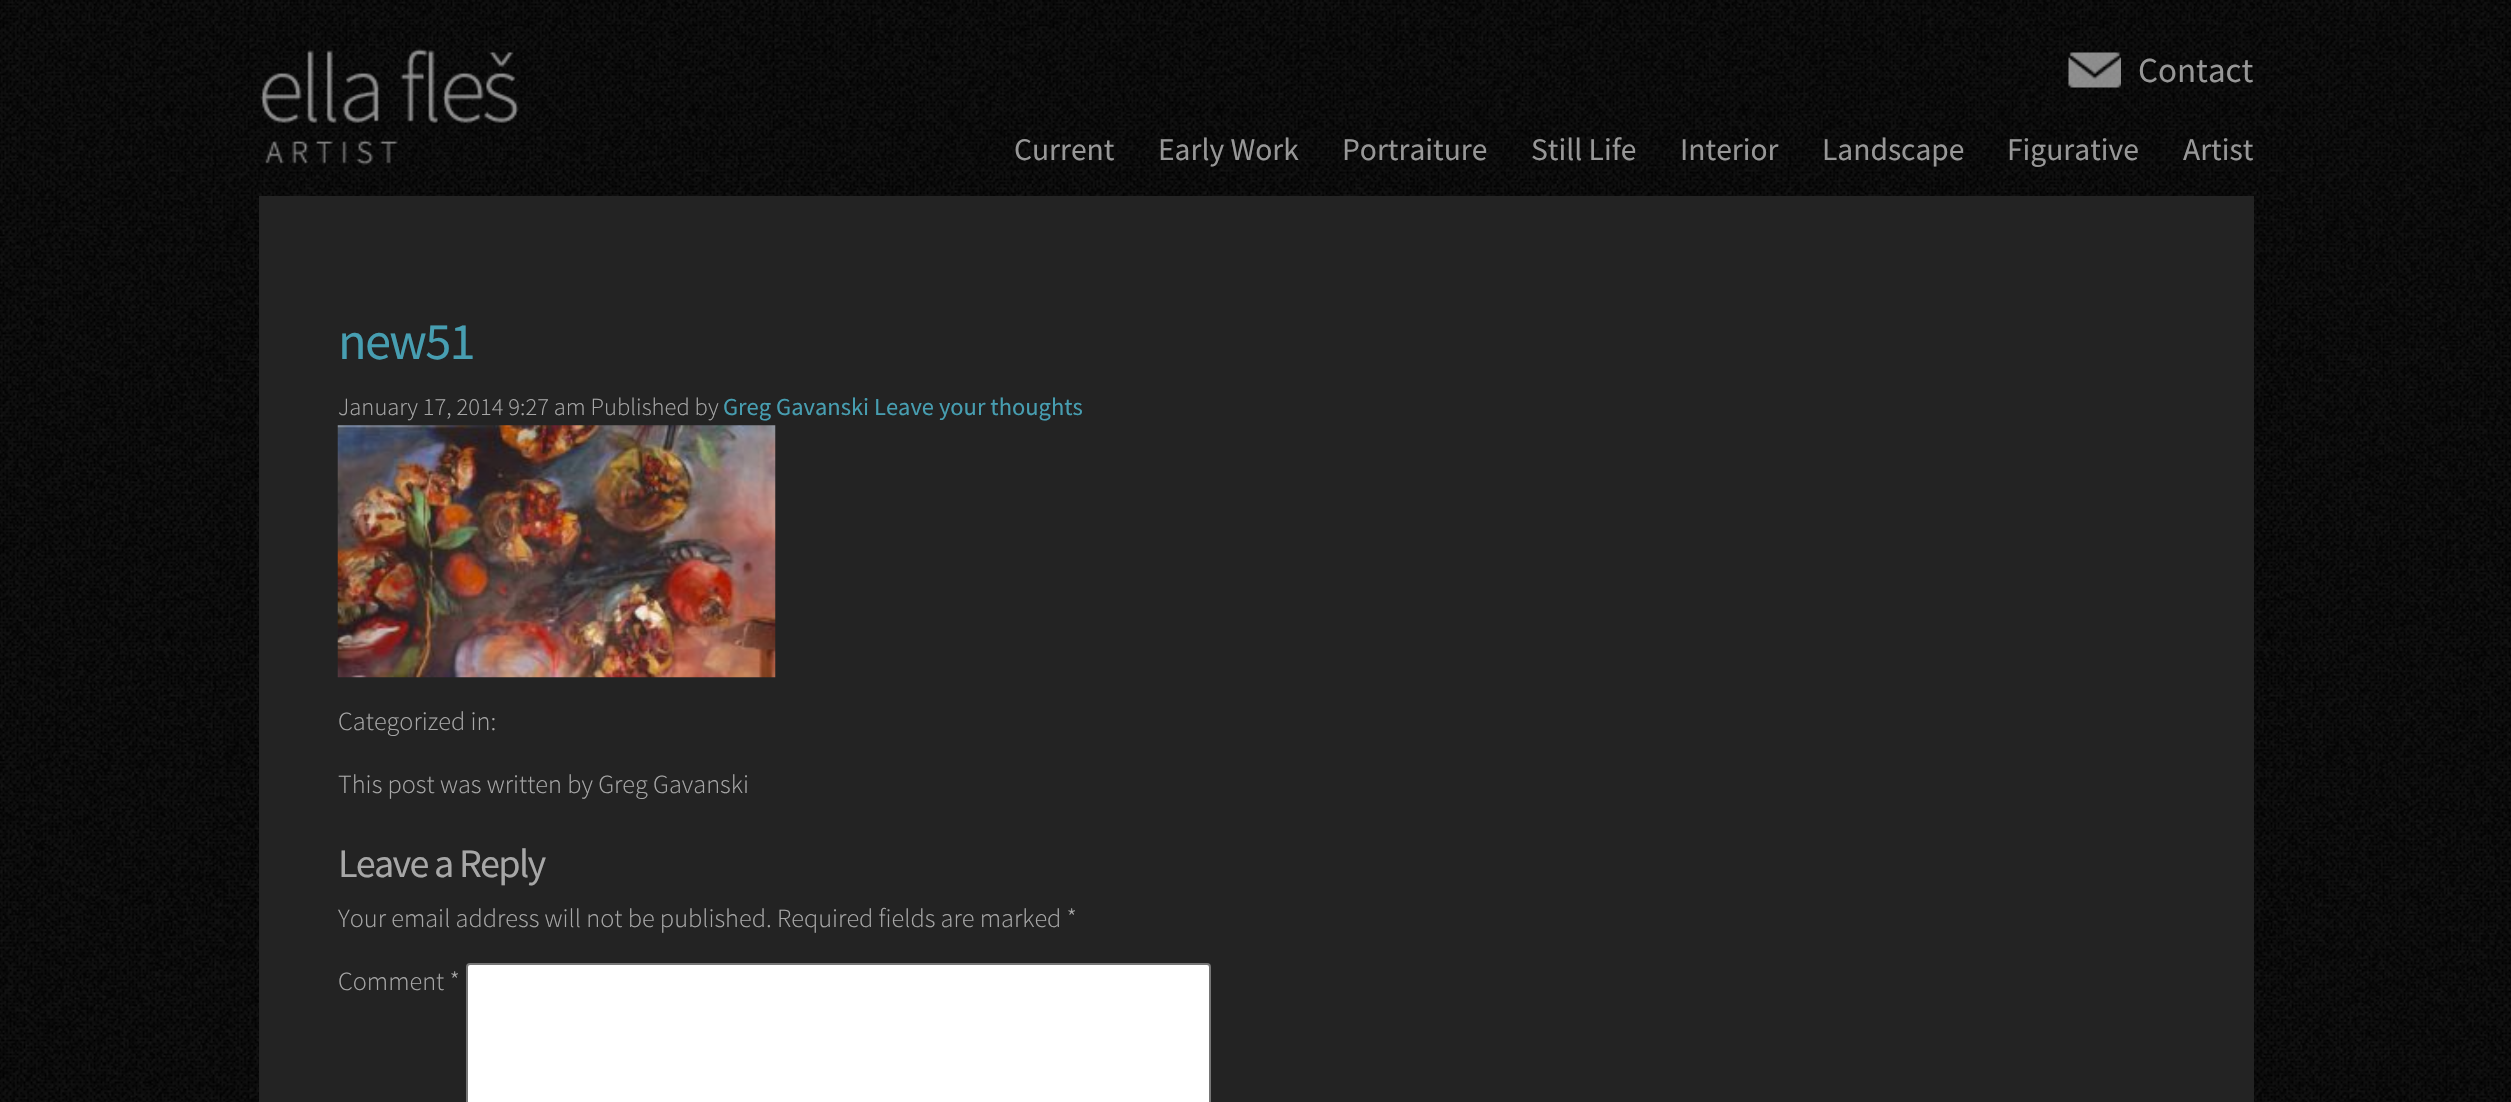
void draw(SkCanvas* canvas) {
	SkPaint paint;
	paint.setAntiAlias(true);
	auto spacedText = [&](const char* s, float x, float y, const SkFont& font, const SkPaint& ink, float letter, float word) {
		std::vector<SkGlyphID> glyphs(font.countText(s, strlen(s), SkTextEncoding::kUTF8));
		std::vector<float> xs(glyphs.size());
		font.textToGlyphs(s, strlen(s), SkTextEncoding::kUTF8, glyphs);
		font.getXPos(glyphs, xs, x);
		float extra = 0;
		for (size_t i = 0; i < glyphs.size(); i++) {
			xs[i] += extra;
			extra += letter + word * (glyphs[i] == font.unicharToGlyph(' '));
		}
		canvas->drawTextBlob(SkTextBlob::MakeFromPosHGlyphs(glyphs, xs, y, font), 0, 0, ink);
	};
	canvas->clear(0xffffffff);
	canvas->drawImageRect(SkImages::DeferredFromEncodedData(SkData::MakeFromFileName("img1.png")), SkRect::MakeXYWH(0, 0, 2511, 1102), SkSamplingOptions());
	canvas->drawImageRect(SkImages::DeferredFromEncodedData(SkData::MakeFromFileName("img2.png")), SkRect::MakeXYWH(260, 48, 259, 117), SkSamplingOptions());
	canvas->drawImageRect(SkImages::DeferredFromEncodedData(SkData::MakeFromFileName("img3.png")), SkRect::MakeXYWH(2068, 52, 53, 36), SkSamplingOptions());
	SkFont f1(fontMgr->matchFamilyStyle("Source Sans Pro", SkFontStyle::Normal()), 35);
	f1.setSubpixel(true);
	paint.setColor(0xff979797);
	canvas->drawString("Contact", 2138, 82, f1, paint);
	SkFont f2(fontMgr->matchFamilyStyle("Source Sans Pro", SkFontStyle::Normal()), 31.5);
	f2.setSubpixel(true);
	canvas->drawString("Current", 1014, 160, f2, paint);
	canvas->drawString("Early Work", 1158, 160, f2, paint);
	canvas->drawString("Portraiture", 1342, 160, f2, paint);
	canvas->drawString("Still Life", 1531, 160, f2, paint);
	canvas->drawString("Interior", 1680, 160, f2, paint);
	canvas->drawString("Landscape", 1822, 160, f2, paint);
	canvas->drawString("Figurative", 2007, 160, f2, paint);
	canvas->drawString("Artist", 2183, 160, f2, paint);
	paint.setColor(0xff232323);
	canvas->drawRect(SkRect::MakeXYWH(259, 196, 1995, 906), paint);
	SkFont f3(fontMgr->matchFamilyStyle("Source Sans Pro", SkFontStyle::Normal()), 52.5);
	f3.setSubpixel(true);
	paint.setColor(0xff479eb1);
	spacedText("new51", 338, 359, f3, paint, -1.75, 0);
	SkFont f4(fontMgr->matchFamilyStyle("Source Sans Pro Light", SkFontStyle(300, SkFontStyle::kNormal_Width, SkFontStyle::kUpright_Slant)), 24.5);
	f4.setSubpixel(true);
	paint.setColor(0xffa7a7a7);
	canvas->drawString("January 17, 2014 9:27 am Published by", 338, 415, f4, paint);
	SkFont f5(fontMgr->matchFamilyStyle("Source Sans Pro", SkFontStyle::Normal()), 24.5);
	f5.setSubpixel(true);
	paint.setColor(0xff479eb1);
	canvas->drawString("Greg Gavanski Leave your thoughts", 723, 415, f5, paint);
	canvas->drawImageRect(SkImages::DeferredFromEncodedData(SkData::MakeFromFileName("img4.png")), SkRect::MakeXYWH(337, 425, 439, 253), SkSamplingOptions());
	SkFont f6(fontMgr->matchFamilyStyle("Source Sans Pro Light", SkFontStyle(300, SkFontStyle::kNormal_Width, SkFontStyle::kUpright_Slant)), 26.25);
	f6.setSubpixel(true);
	paint.setColor(0xffa7a7a7);
	canvas->drawString("Categorized in:", 338, 730, f6, paint);
	canvas->drawString("This post was written by Greg Gavanski", 338, 793, f6, paint);
	SkFont f7(fontMgr->matchFamilyStyle("Source Sans Pro", SkFontStyle::Normal()), 40.25);
	f7.setSubpixel(true);
	spacedText("Leave a Reply", 338, 877, f7, paint, -1.75, 0);
	canvas->drawString("Your email address will not be published. Required fields are marked *", 338, 927, f6, paint);
	canvas->drawString("Comment *", 338, 990, f6, paint);
	paint.setColor(0xffffffff);
	canvas->drawRoundRect(SkRect::MakeXYWH(467, 964, 743, 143), 3, 3, paint);
	paint.setStroke(true);
	paint.setStrokeWidth(2);
	paint.setColor(0xff767676);
	canvas->drawRoundRect(SkRect::MakeXYWH(467, 964, 743, 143), 3, 3, paint);
}
